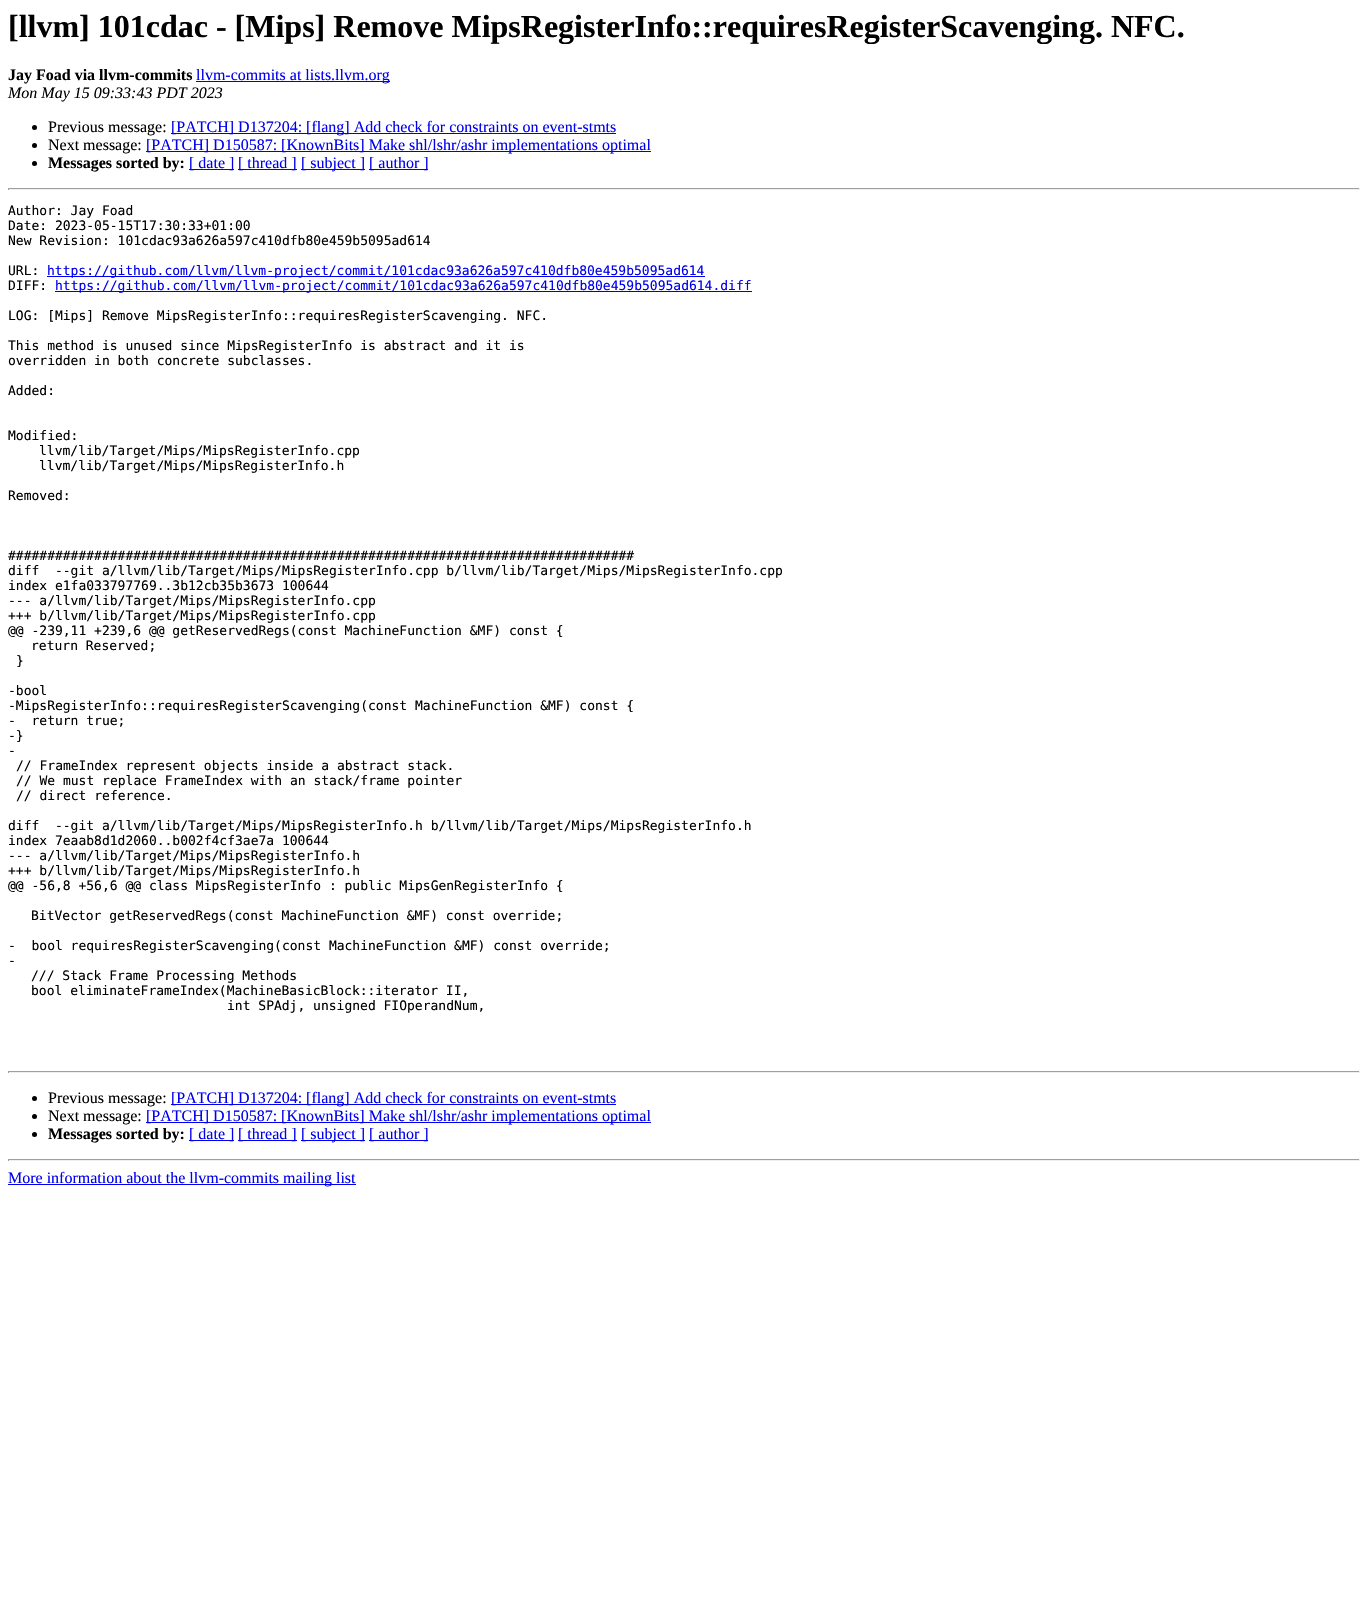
void draw(SkCanvas* canvas) {
	SkPaint paint;
	paint.setAntiAlias(true);
	canvas->clear(0xffffffff);
	SkFont f1(fontMgr->matchFamilyStyle("Liberation Serif", SkFontStyle::Bold()), 32);
	f1.setSubpixel(true);
	paint.setColor(0xff000000);
	canvas->drawString("[llvm] 101cdac - [Mips] Remove MipsRegisterInfo::requiresRegisterScavenging. NFC.", 8, 37, f1, paint);
	SkFont f2(fontMgr->matchFamilyStyle("Liberation Serif", SkFontStyle::Bold()), 16);
	f2.setSubpixel(true);
	canvas->drawString("Jay Foad via llvm-commits", 8, 80, f2, paint);
	paint.setColor(0xff0000ee);
	canvas->drawRect(SkRect::MakeXYWH(196, 81, 194, 1), paint);
	SkFont f3(fontMgr->matchFamilyStyle("Liberation Serif", SkFontStyle::Normal()), 16);
	f3.setSubpixel(true);
	canvas->drawString("llvm-commits at lists.llvm.org", 196, 80, f3, paint);
	SkFont f4(fontMgr->matchFamilyStyle("Liberation Serif", SkFontStyle::Italic()), 16);
	f4.setSubpixel(true);
	paint.setColor(0xff000000);
	canvas->drawString("Mon May 15 09:33:43 PDT 2023", 8, 98, f4, paint);
	canvas->drawCircle(34.5, 127.5, 2.5, paint);
	canvas->drawString("Previous message:", 48, 132, f3, paint);
	paint.setColor(0xff0000ee);
	canvas->drawRect(SkRect::MakeXYWH(171, 133, 445, 1), paint);
	canvas->drawString("[PATCH] D137204: [flang] Add check for constraints on event-stmts", 171, 132, f3, paint);
	paint.setColor(0xff000000);
	canvas->drawCircle(34.5, 145.5, 2.5, paint);
	canvas->drawString("Next message:", 48, 150, f3, paint);
	paint.setColor(0xff0000ee);
	canvas->drawRect(SkRect::MakeXYWH(146, 151, 505, 1), paint);
	canvas->drawString("[PATCH] D150587: [KnownBits] Make shl/lshr/ashr implementations optimal", 146, 150, f3, paint);
	paint.setColor(0xff000000);
	canvas->drawCircle(34.5, 163.5, 2.5, paint);
	canvas->drawString("Messages sorted by:", 48, 168, f2, paint);
	paint.setColor(0xff0000ee);
	canvas->drawRect(SkRect::MakeXYWH(189, 169, 45, 1), paint);
	canvas->drawString("[ date ]", 189, 168, f3, paint);
	canvas->drawRect(SkRect::MakeXYWH(238, 169, 59, 1), paint);
	canvas->drawString("[ thread ]", 238, 168, f3, paint);
	canvas->drawRect(SkRect::MakeXYWH(301, 169, 64, 1), paint);
	canvas->drawString("[ subject ]", 301, 168, f3, paint);
	canvas->drawRect(SkRect::MakeXYWH(369, 169, 59, 1), paint);
	canvas->drawString("[ author ]", 369, 168, f3, paint);
	paint.setColor(0xff9f9f9f);
	canvas->drawRect(SkRect::MakeXYWH(8, 188, 1352, 1), paint);
	paint.setColor(0xffeeeeee);
	canvas->drawRect(SkRect::MakeXYWH(1359, 188, 1, 2), paint);
	canvas->drawRect(SkRect::MakeXYWH(8, 189, 1352, 1), paint);
	paint.setColor(0xff9f9f9f);
	canvas->drawRect(SkRect::MakeXYWH(8, 188, 1, 2), paint);
	SkFont f5(fontMgr->matchFamilyStyle("DejaVu Sans Mono", SkFontStyle::Normal()), 13);
	f5.setSubpixel(true);
	paint.setColor(0xff000000);
	canvas->drawString("Author: Jay Foad", 8, 215, f5, paint);
	canvas->drawString("Date: 2023-05-15T17:30:33+01:00", 8, 230, f5, paint);
	canvas->drawString("New Revision: 101cdac93a626a597c410dfb80e459b5095ad614", 8, 245, f5, paint);
	canvas->drawString("URL:", 8, 275, f5, paint);
	paint.setColor(0xff0000ee);
	canvas->drawRect(SkRect::MakeXYWH(47, 276, 658, 1), paint);
	canvas->drawString("https://github.com/llvm/llvm-project/commit/101cdac93a626a597c410dfb80e459b5095ad614", 47, 275, f5, paint);
	paint.setColor(0xff000000);
	canvas->drawString("DIFF:", 8, 290, f5, paint);
	paint.setColor(0xff0000ee);
	canvas->drawRect(SkRect::MakeXYWH(55, 291, 697, 1), paint);
	canvas->drawString("https://github.com/llvm/llvm-project/commit/101cdac93a626a597c410dfb80e459b5095ad614.diff", 55, 290, f5, paint);
	paint.setColor(0xff000000);
	canvas->drawString("LOG: [Mips] Remove MipsRegisterInfo::requiresRegisterScavenging. NFC.", 8, 320, f5, paint);
	canvas->drawString("This method is unused since MipsRegisterInfo is abstract and it is", 8, 350, f5, paint);
	canvas->drawString("overridden in both concrete subclasses.", 8, 365, f5, paint);
	canvas->drawString("Added:", 8, 395, f5, paint);
	canvas->drawString("Modified:", 8, 440, f5, paint);
	canvas->drawString("llvm/lib/Target/Mips/MipsRegisterInfo.cpp", 39, 455, f5, paint);
	canvas->drawString("llvm/lib/Target/Mips/MipsRegisterInfo.h", 39, 470, f5, paint);
	canvas->drawString("Removed:", 8, 500, f5, paint);
	canvas->drawString("################################################################################", 8, 560, f5, paint);
	canvas->drawString("diff  --git a/llvm/lib/Target/Mips/MipsRegisterInfo.cpp b/llvm/lib/Target/Mips/MipsRegisterInfo.cpp", 8, 575, f5, paint);
	canvas->drawString("index e1fa033797769..3b12cb35b3673 100644", 8, 590, f5, paint);
	canvas->drawString("--- a/llvm/lib/Target/Mips/MipsRegisterInfo.cpp", 8, 605, f5, paint);
	canvas->drawString("+++ b/llvm/lib/Target/Mips/MipsRegisterInfo.cpp", 8, 620, f5, paint);
	canvas->drawString("@@ -239,11 +239,6 @@ getReservedRegs(const MachineFunction &MF) const {", 8, 635, f5, paint);
	canvas->drawString("return Reserved;", 31, 650, f5, paint);
	canvas->drawString("}", 16, 665, f5, paint);
	canvas->drawString("-bool", 8, 695, f5, paint);
	canvas->drawString("-MipsRegisterInfo::requiresRegisterScavenging(const MachineFunction &MF) const {", 8, 710, f5, paint);
	canvas->drawString("-  return true;", 8, 725, f5, paint);
	canvas->drawString("-}", 8, 740, f5, paint);
	canvas->drawString("-", 8, 755, f5, paint);
	canvas->drawString("// FrameIndex represent objects inside a abstract stack.", 16, 770, f5, paint);
	canvas->drawString("// We must replace FrameIndex with an stack/frame pointer", 16, 785, f5, paint);
	canvas->drawString("// direct reference.", 16, 800, f5, paint);
	canvas->drawString("diff  --git a/llvm/lib/Target/Mips/MipsRegisterInfo.h b/llvm/lib/Target/Mips/MipsRegisterInfo.h", 8, 830, f5, paint);
	canvas->drawString("index 7eaab8d1d2060..b002f4cf3ae7a 100644", 8, 845, f5, paint);
	canvas->drawString("--- a/llvm/lib/Target/Mips/MipsRegisterInfo.h", 8, 860, f5, paint);
	canvas->drawString("+++ b/llvm/lib/Target/Mips/MipsRegisterInfo.h", 8, 875, f5, paint);
	canvas->drawString("@@ -56,8 +56,6 @@ class MipsRegisterInfo : public MipsGenRegisterInfo {", 8, 890, f5, paint);
	canvas->drawString("BitVector getReservedRegs(const MachineFunction &MF) const override;", 31, 920, f5, paint);
	canvas->drawString("-  bool requiresRegisterScavenging(const MachineFunction &MF) const override;", 8, 950, f5, paint);
	canvas->drawString("-", 8, 965, f5, paint);
	canvas->drawString("/// Stack Frame Processing Methods", 31, 980, f5, paint);
	canvas->drawString("bool eliminateFrameIndex(MachineBasicBlock::iterator II,", 31, 995, f5, paint);
	canvas->drawString("int SPAdj, unsigned FIOperandNum,", 227, 1010, f5, paint);
	paint.setColor(0xff9f9f9f);
	canvas->drawRect(SkRect::MakeXYWH(8, 1071, 1352, 1), paint);
	paint.setColor(0xffeeeeee);
	canvas->drawRect(SkRect::MakeXYWH(1359, 1071, 1, 2), paint);
	canvas->drawRect(SkRect::MakeXYWH(8, 1072, 1352, 1), paint);
	paint.setColor(0xff9f9f9f);
	canvas->drawRect(SkRect::MakeXYWH(8, 1071, 1, 2), paint);
	paint.setColor(0xff000000);
	canvas->drawCircle(34.5, 1098.5, 2.5, paint);
	canvas->drawString("Previous message:", 48, 1103, f3, paint);
	paint.setColor(0xff0000ee);
	canvas->drawRect(SkRect::MakeXYWH(171, 1104, 445, 1), paint);
	canvas->drawString("[PATCH] D137204: [flang] Add check for constraints on event-stmts", 171, 1103, f3, paint);
	paint.setColor(0xff000000);
	canvas->drawCircle(34.5, 1116.5, 2.5, paint);
	canvas->drawString("Next message:", 48, 1121, f3, paint);
	paint.setColor(0xff0000ee);
	canvas->drawRect(SkRect::MakeXYWH(146, 1122, 505, 1), paint);
	canvas->drawString("[PATCH] D150587: [KnownBits] Make shl/lshr/ashr implementations optimal", 146, 1121, f3, paint);
	paint.setColor(0xff000000);
	canvas->drawCircle(34.5, 1134.5, 2.5, paint);
	canvas->drawString("Messages sorted by:", 48, 1139, f2, paint);
	paint.setColor(0xff0000ee);
	canvas->drawRect(SkRect::MakeXYWH(189, 1140, 45, 1), paint);
	canvas->drawString("[ date ]", 189, 1139, f3, paint);
	canvas->drawRect(SkRect::MakeXYWH(238, 1140, 59, 1), paint);
	canvas->drawString("[ thread ]", 238, 1139, f3, paint);
	canvas->drawRect(SkRect::MakeXYWH(301, 1140, 64, 1), paint);
	canvas->drawString("[ subject ]", 301, 1139, f3, paint);
	canvas->drawRect(SkRect::MakeXYWH(369, 1140, 59, 1), paint);
	canvas->drawString("[ author ]", 369, 1139, f3, paint);
	paint.setColor(0xff9f9f9f);
	canvas->drawRect(SkRect::MakeXYWH(8, 1159, 1352, 1), paint);
	paint.setColor(0xffeeeeee);
	canvas->drawRect(SkRect::MakeXYWH(1359, 1159, 1, 2), paint);
	canvas->drawRect(SkRect::MakeXYWH(8, 1160, 1352, 1), paint);
	paint.setColor(0xff9f9f9f);
	canvas->drawRect(SkRect::MakeXYWH(8, 1159, 1, 2), paint);
	paint.setColor(0xff0000ee);
	canvas->drawRect(SkRect::MakeXYWH(8, 1184, 348, 1), paint);
	canvas->drawString("More information about the llvm-commits mailing list", 8, 1183, f3, paint);
}
